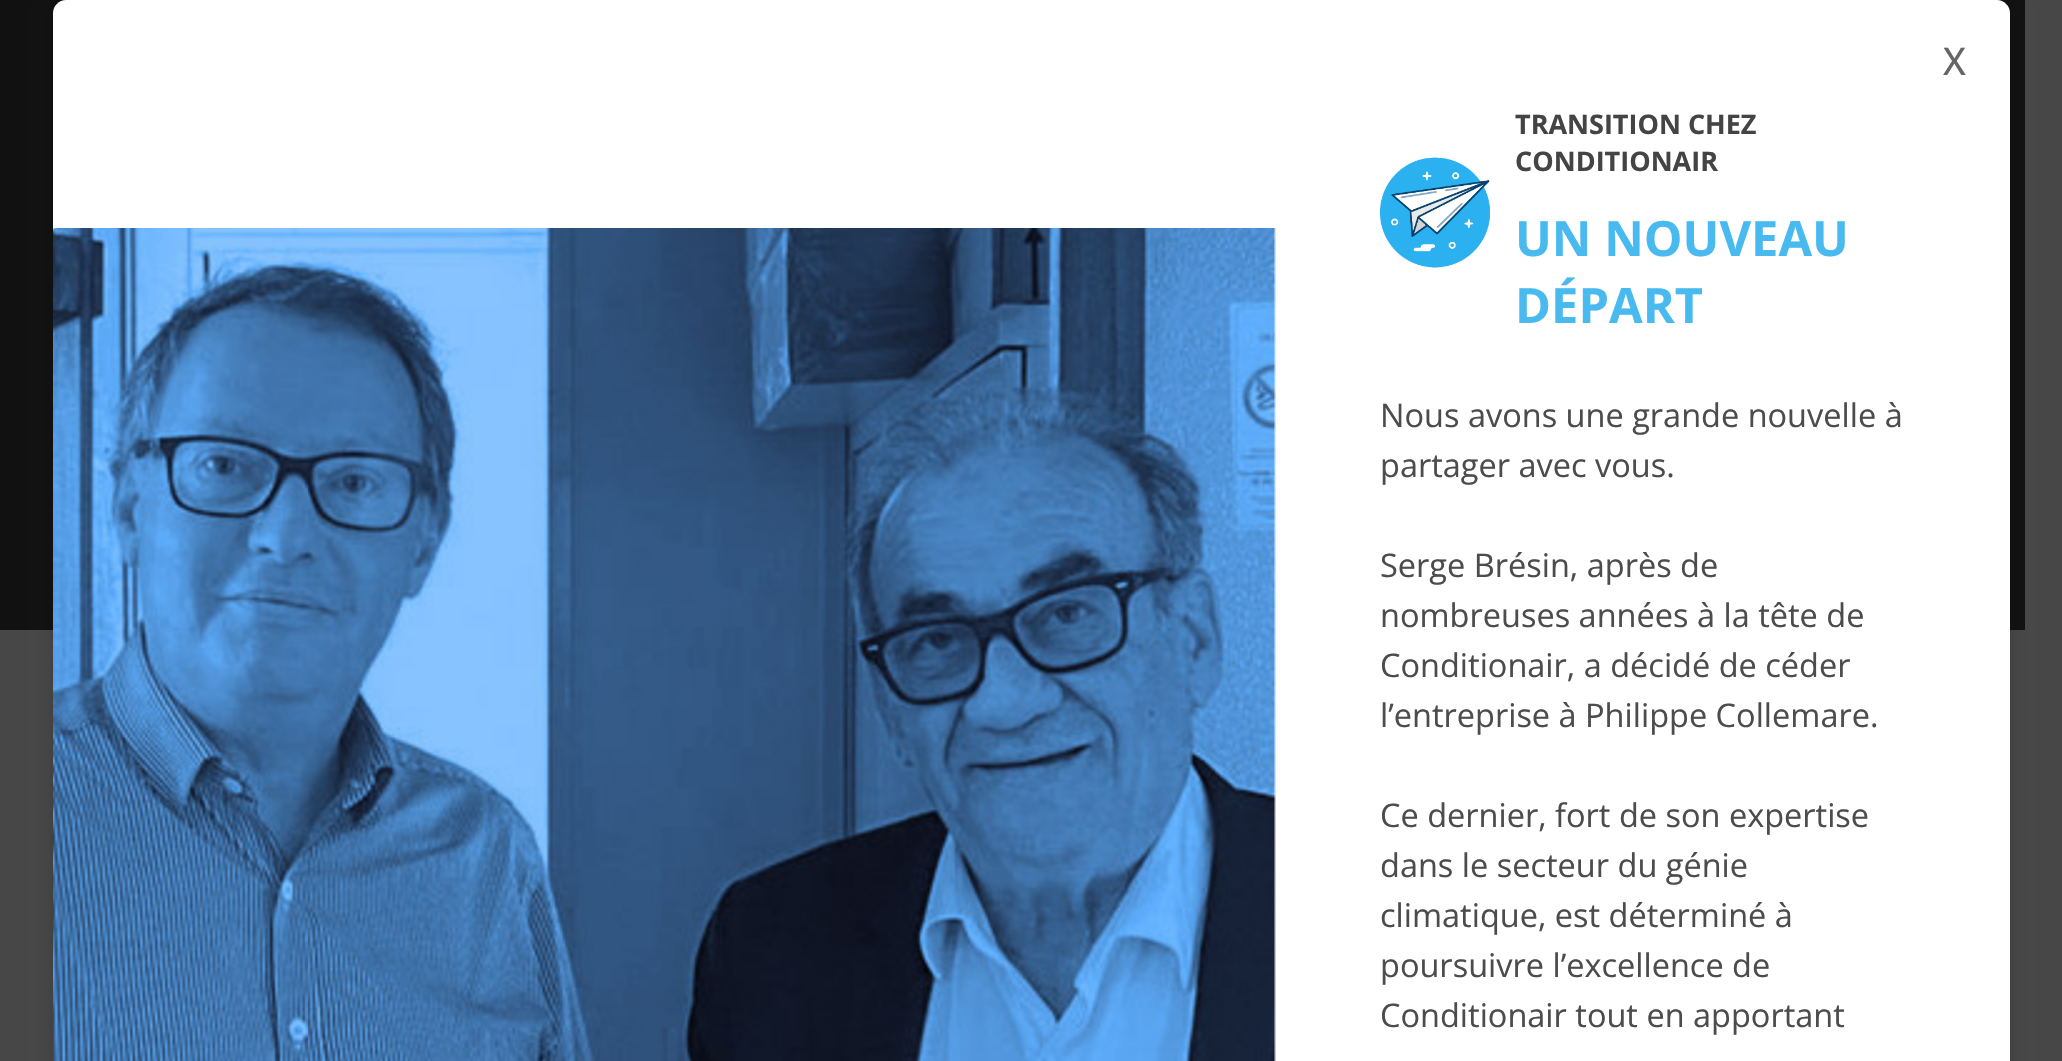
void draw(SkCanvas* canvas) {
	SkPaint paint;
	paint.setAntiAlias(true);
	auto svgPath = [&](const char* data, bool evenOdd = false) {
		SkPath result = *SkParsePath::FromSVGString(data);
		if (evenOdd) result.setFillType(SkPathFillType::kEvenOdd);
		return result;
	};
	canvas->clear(0xff474747);
	paint.setColor(0xff111111);
	canvas->drawRect(SkRect::MakeXYWH(0, 0, 2025, 630), paint);
	paint.setColor(0x300a0a0a);
	paint.setMaskFilter(SkMaskFilter::MakeBlur(kNormal_SkBlurStyle, 11));
	canvas->drawRoundRect(SkRect::MakeXYWH(55, 3, 1953, 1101), 10, 10, paint);
	paint.setMaskFilter(nullptr);
	paint.setColor(0xffffffff);
	canvas->drawPath(svgPath("M66 0H1997C2004 0 2010 6 2010 13V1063H53V13C53 6 59 0 66 0Z"), paint);
	SkFont f1(fontMgr->matchFamilyStyle("Open Sans", SkFontStyle(500, SkFontStyle::kNormal_Width, SkFontStyle::kUpright_Slant)), 38);
	f1.setSubpixel(true);
	paint.setColor(0xff666666);
	canvas->drawString("X", 1943, 75, f1, paint);
	canvas->drawImageRect(SkImages::DeferredFromEncodedData(SkData::MakeFromFileName("img1.png")), SkRect::MakeXYWH(53, 228, 1223, 833), SkSamplingOptions());
	canvas->drawImageRect(SkImages::DeferredFromEncodedData(SkData::MakeFromFileName("img2.png")), SkRect::MakeXYWH(1380, 157, 110, 111), SkSamplingOptions());
	SkFont f2(fontMgr->matchFamilyStyle("Open Sans", SkFontStyle::Bold()), 27);
	f2.setSubpixel(true);
	paint.setColor(0xff444444);
	canvas->drawString("TRANSITION CHEZ", 1515, 134, f2, paint);
	canvas->drawString("CONDITIONAIR", 1515, 171, f2, paint);
	SkFont f3(fontMgr->matchFamilyStyle("Open Sans", SkFontStyle::Bold()), 48.75);
	f3.setSubpixel(true);
	paint.setColor(0xff48baef);
	canvas->drawString("UN NOUVEAU", 1515, 256, f3, paint);
	canvas->drawString("DÉPART", 1515, 323, f3, paint);
	SkFont f4(fontMgr->matchFamilyStyle("Open Sans", SkFontStyle::Normal()), 32.5);
	f4.setSubpixel(true);
	paint.setColor(0xff4c4c4c);
	canvas->drawString("Nous avons une grande nouvelle à", 1380, 427, f4, paint);
	canvas->drawString("partager avec vous.", 1380, 477, f4, paint);
	canvas->drawString("Serge Brésin, après de", 1380, 577, f4, paint);
	canvas->drawString("nombreuses années à la tête de", 1380, 627, f4, paint);
	canvas->drawString("Conditionair, a décidé de céder", 1380, 677, f4, paint);
	canvas->drawString("l’entreprise à Philippe Collemare.", 1380, 727, f4, paint);
	canvas->drawString("Ce dernier, fort de son expertise", 1380, 827, f4, paint);
	canvas->drawString("dans le secteur du génie", 1380, 877, f4, paint);
	canvas->drawString("climatique, est déterminé à", 1380, 927, f4, paint);
	canvas->drawString("poursuivre l’excellence de", 1380, 977, f4, paint);
	canvas->drawString("Conditionair tout en apportant", 1380, 1027, f4, paint);
}
